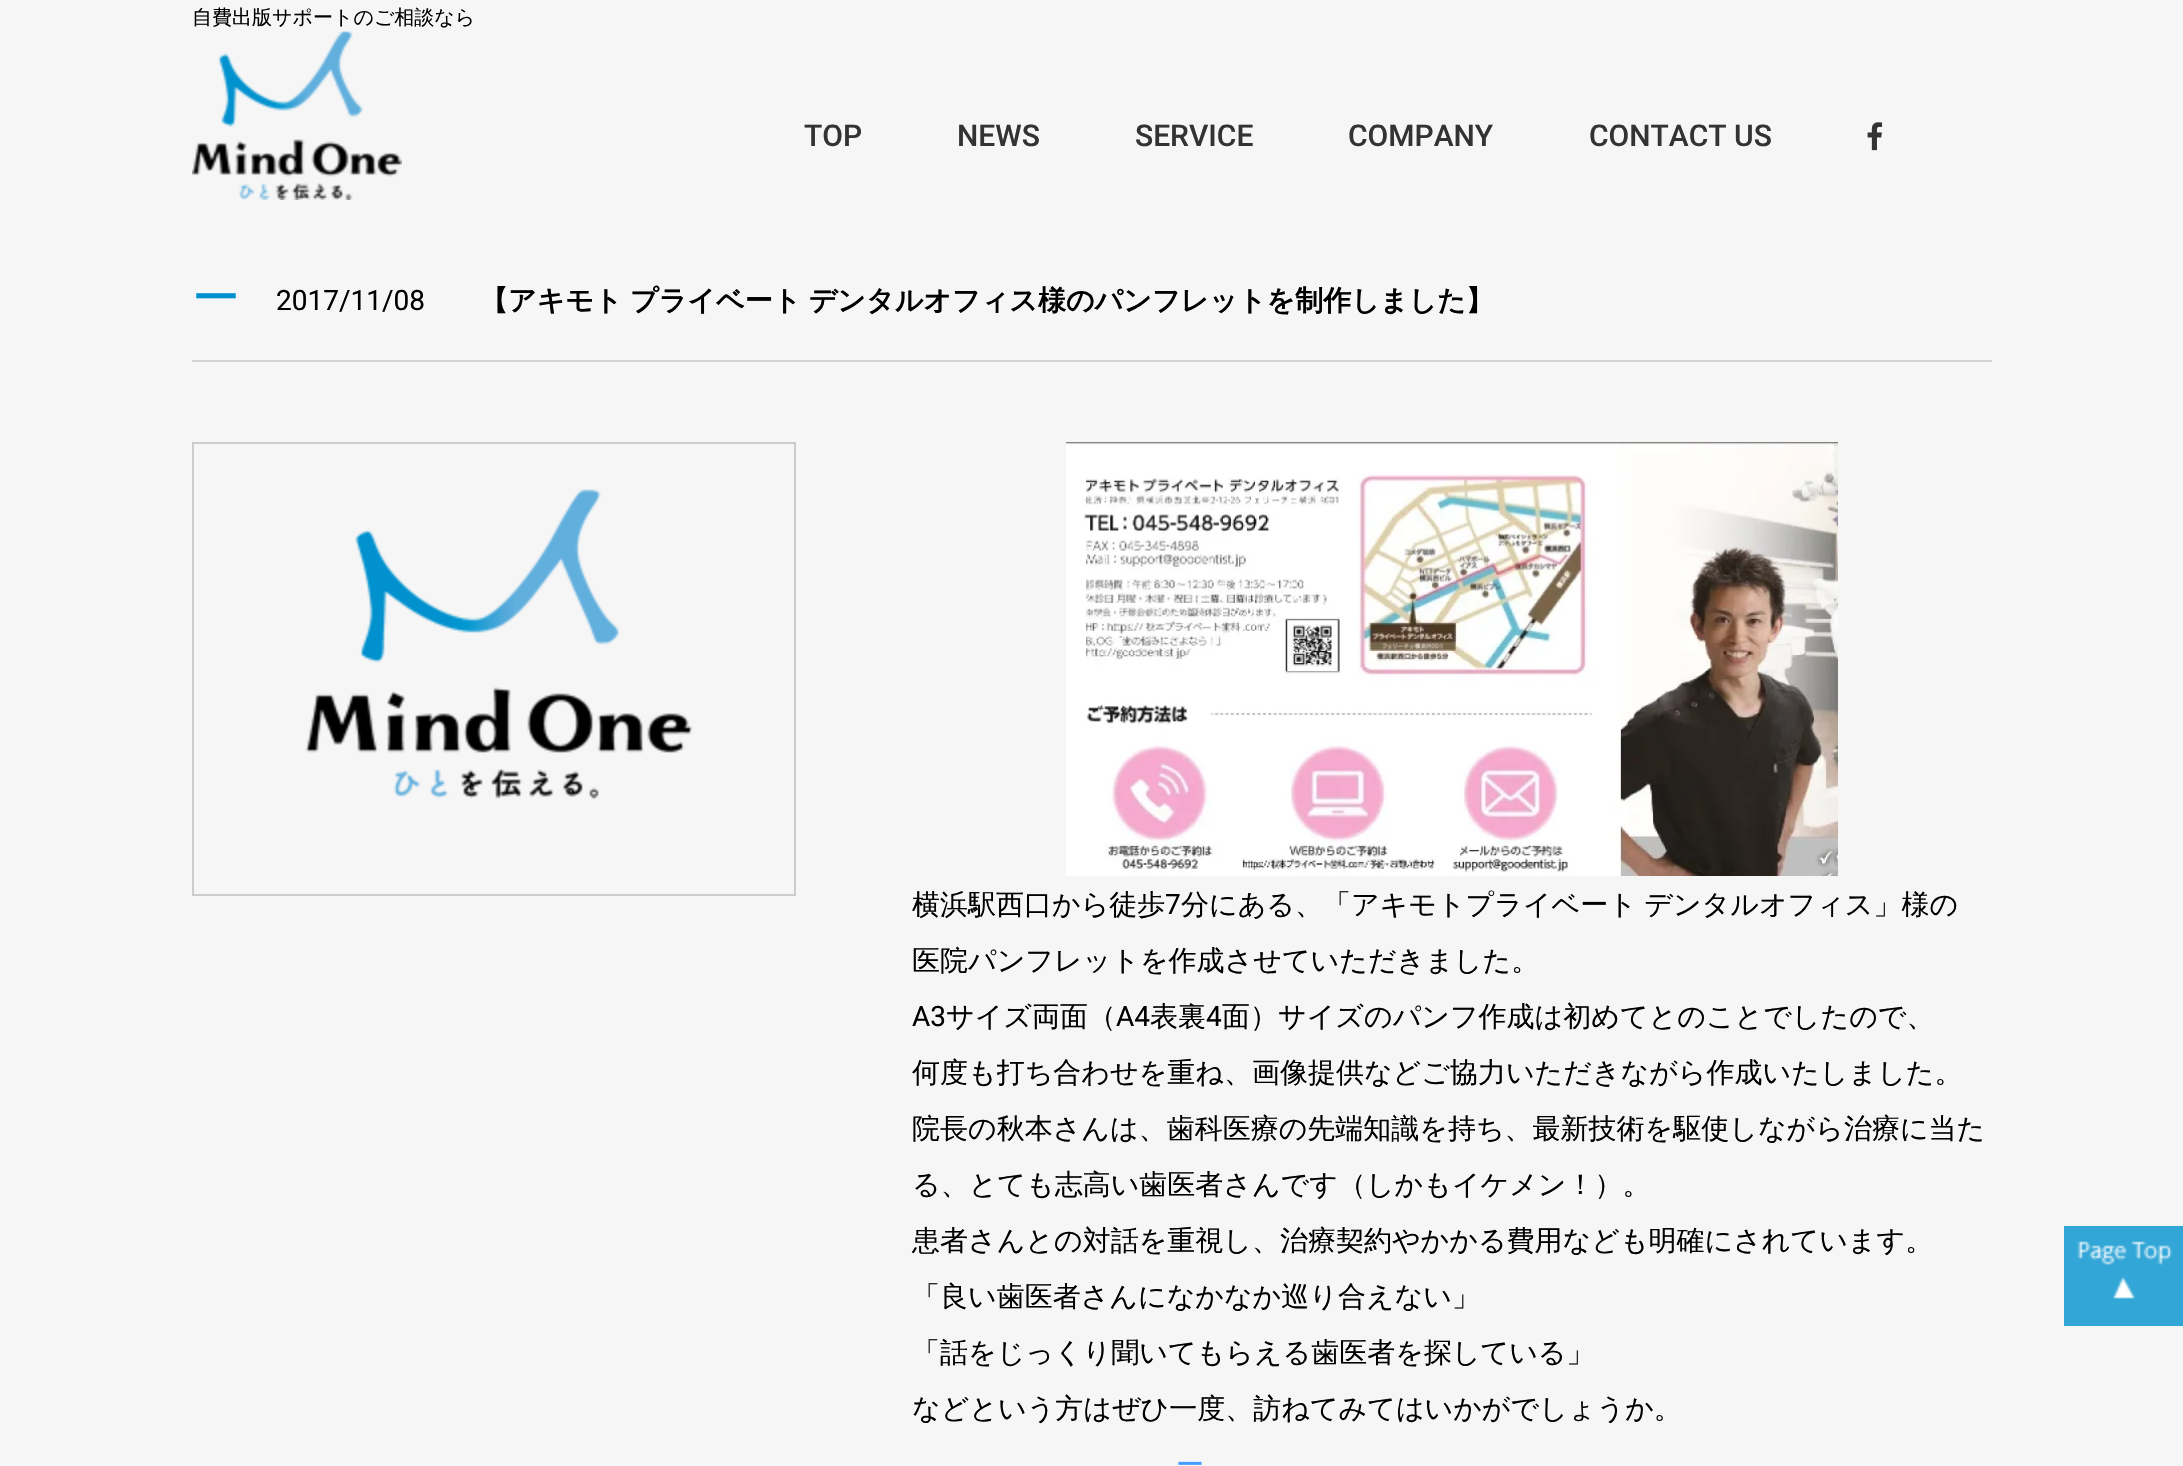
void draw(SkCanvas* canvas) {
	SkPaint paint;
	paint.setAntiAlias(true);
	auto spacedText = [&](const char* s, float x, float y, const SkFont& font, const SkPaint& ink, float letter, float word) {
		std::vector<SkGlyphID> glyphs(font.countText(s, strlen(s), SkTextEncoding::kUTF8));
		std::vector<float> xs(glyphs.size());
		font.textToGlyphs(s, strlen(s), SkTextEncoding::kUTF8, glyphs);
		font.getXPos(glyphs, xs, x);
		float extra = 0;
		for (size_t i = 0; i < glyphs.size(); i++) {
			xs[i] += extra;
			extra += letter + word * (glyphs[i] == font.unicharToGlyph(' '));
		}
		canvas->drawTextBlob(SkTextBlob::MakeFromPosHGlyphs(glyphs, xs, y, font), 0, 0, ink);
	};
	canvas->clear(0xfff6f6f6);
	SkFont f1(fontMgr->matchFamilyStyle("WenQuanYi Zen Hei", SkFontStyle(500, SkFontStyle::kNormal_Width, SkFontStyle::kUpright_Slant)), 20);
	f1.setSubpixel(true);
	paint.setColor(0xff000000);
	canvas->drawString("自費出版サポートのご相談なら", 192, 24, f1, paint);
	canvas->drawImageRect(SkImages::DeferredFromEncodedData(SkData::MakeFromFileName("img1.png")), SkRect::MakeXYWH(192, 31, 210, 169), SkSamplingOptions());
	SkFont f2(fontMgr->matchFamilyStyle("Roboto", SkFontStyle(500, SkFontStyle::kNormal_Width, SkFontStyle::kUpright_Slant)), 30);
	f2.setSubpixel(true);
	paint.setColor(0xff333333);
	canvas->drawString("TOP", 804, 146, f2, paint);
	canvas->drawString("NEWS", 957, 146, f2, paint);
	canvas->drawString("SERVICE", 1135, 146, f2, paint);
	canvas->drawString("COMPANY", 1348, 146, f2, paint);
	canvas->drawString("CONTACT US", 1589, 146, f2, paint);
	canvas->drawImageRect(SkImages::DeferredFromEncodedData(SkData::MakeFromFileName("img2.png")), SkRect::MakeXYWH(1867, 122, 16, 29), SkSamplingOptions());
	paint.setColor(0xffd4d4d4);
	canvas->drawRect(SkRect::MakeXYWH(192, 360, 1800, 2), paint);
	SkFont f3(fontMgr->matchFamilyStyle("WenQuanYi Zen Hei", SkFontStyle(500, SkFontStyle::kNormal_Width, SkFontStyle::kUpright_Slant)), 48);
	f3.setSubpixel(true);
	paint.setColor(0xff0091ce);
	canvas->drawString("ー", 192, 314, f3, paint);
	SkFont f4(fontMgr->matchFamilyStyle("Roboto", SkFontStyle::Normal()), 28);
	f4.setSubpixel(true);
	paint.setColor(0xff000000);
	canvas->drawString("2017/11/08", 276, 310, f4, paint);
	SkFont f5(fontMgr->matchFamilyStyle("WenQuanYi Zen Hei", SkFontStyle::Bold()), 28);
	f5.setSubpixel(true);
	spacedText("【アキモト プライベート デンタルオフィス様のパンフレットを制作しました】", 480, 310, f5, paint, 0, -1);
	paint.setStroke(true);
	paint.setStrokeWidth(2);
	paint.setColor(0xffcccccc);
	canvas->drawRect(SkRect::MakeXYWH(193, 443, 602, 452), paint);
	canvas->drawImageRect(SkImages::DeferredFromEncodedData(SkData::MakeFromFileName("img3.png")), SkRect::MakeXYWH(305, 489, 388, 310), SkSamplingOptions());
	canvas->drawImageRect(SkImages::DeferredFromEncodedData(SkData::MakeFromFileName("img4.png")), SkRect::MakeXYWH(1066, 442, 772, 434), SkSamplingOptions());
	SkFont f6(fontMgr->matchFamilyStyle("WenQuanYi Zen Hei", SkFontStyle(500, SkFontStyle::kNormal_Width, SkFontStyle::kUpright_Slant)), 28);
	f6.setSubpixel(true);
	paint.setStroke(false);
	paint.setColor(0xff000000);
	canvas->drawString("横浜駅西口から徒歩", 912, 914, f6, paint);
	canvas->drawString("7", 1165, 914, f4, paint);
	spacedText("分にある、「アキモトプライベート デンタルオフィス」様の", 1181, 914, f6, paint, 0, -1);
	canvas->drawString("医院パンフレットを作成させていただきました。", 912, 970, f6, paint);
	canvas->drawString("A3", 912, 1026, f4, paint);
	canvas->drawString("サイズ両面（", 946, 1026, f6, paint);
	canvas->drawString("A4", 1116, 1026, f4, paint);
	canvas->drawString("表裏", 1150, 1026, f6, paint);
	canvas->drawString("4", 1206, 1026, f4, paint);
	canvas->drawString("面）サイズのパンフ作成は初めてとのことでしたので、", 1222, 1026, f6, paint);
	canvas->drawString("何度も打ち合わせを重ね、画像提供などご協力いただきながら作成いたしました。", 912, 1082, f6, paint);
	canvas->drawString("院長の秋本さんは、歯科医療の先端知識を持ち、最新技術を駆使しながら治療に当た", 912, 1138, f6, paint);
	canvas->drawString("る、とても志高い歯医者さんです（しかもイケメン！）。", 912, 1194, f6, paint);
	canvas->drawString("患者さんとの対話を重視し、治療契約やかかる費用なども明確にされています。", 912, 1250, f6, paint);
	canvas->drawString("「良い歯医者さんになかなか巡り合えない」", 912, 1306, f6, paint);
	canvas->drawString("「話をじっくり聞いてもらえる歯医者を探している」", 912, 1362, f6, paint);
	canvas->drawString("などという方はぜひ一度、訪ねてみてはいかがでしょうか。", 912, 1418, f6, paint);
	paint.setColor(0xff439dff);
	canvas->drawString("ー", 1176, 1474, f6, paint);
	canvas->drawImageRect(SkImages::DeferredFromEncodedData(SkData::MakeFromFileName("img5.png")), SkRect::MakeXYWH(2064, 1226, 119, 100), SkSamplingOptions());
}
